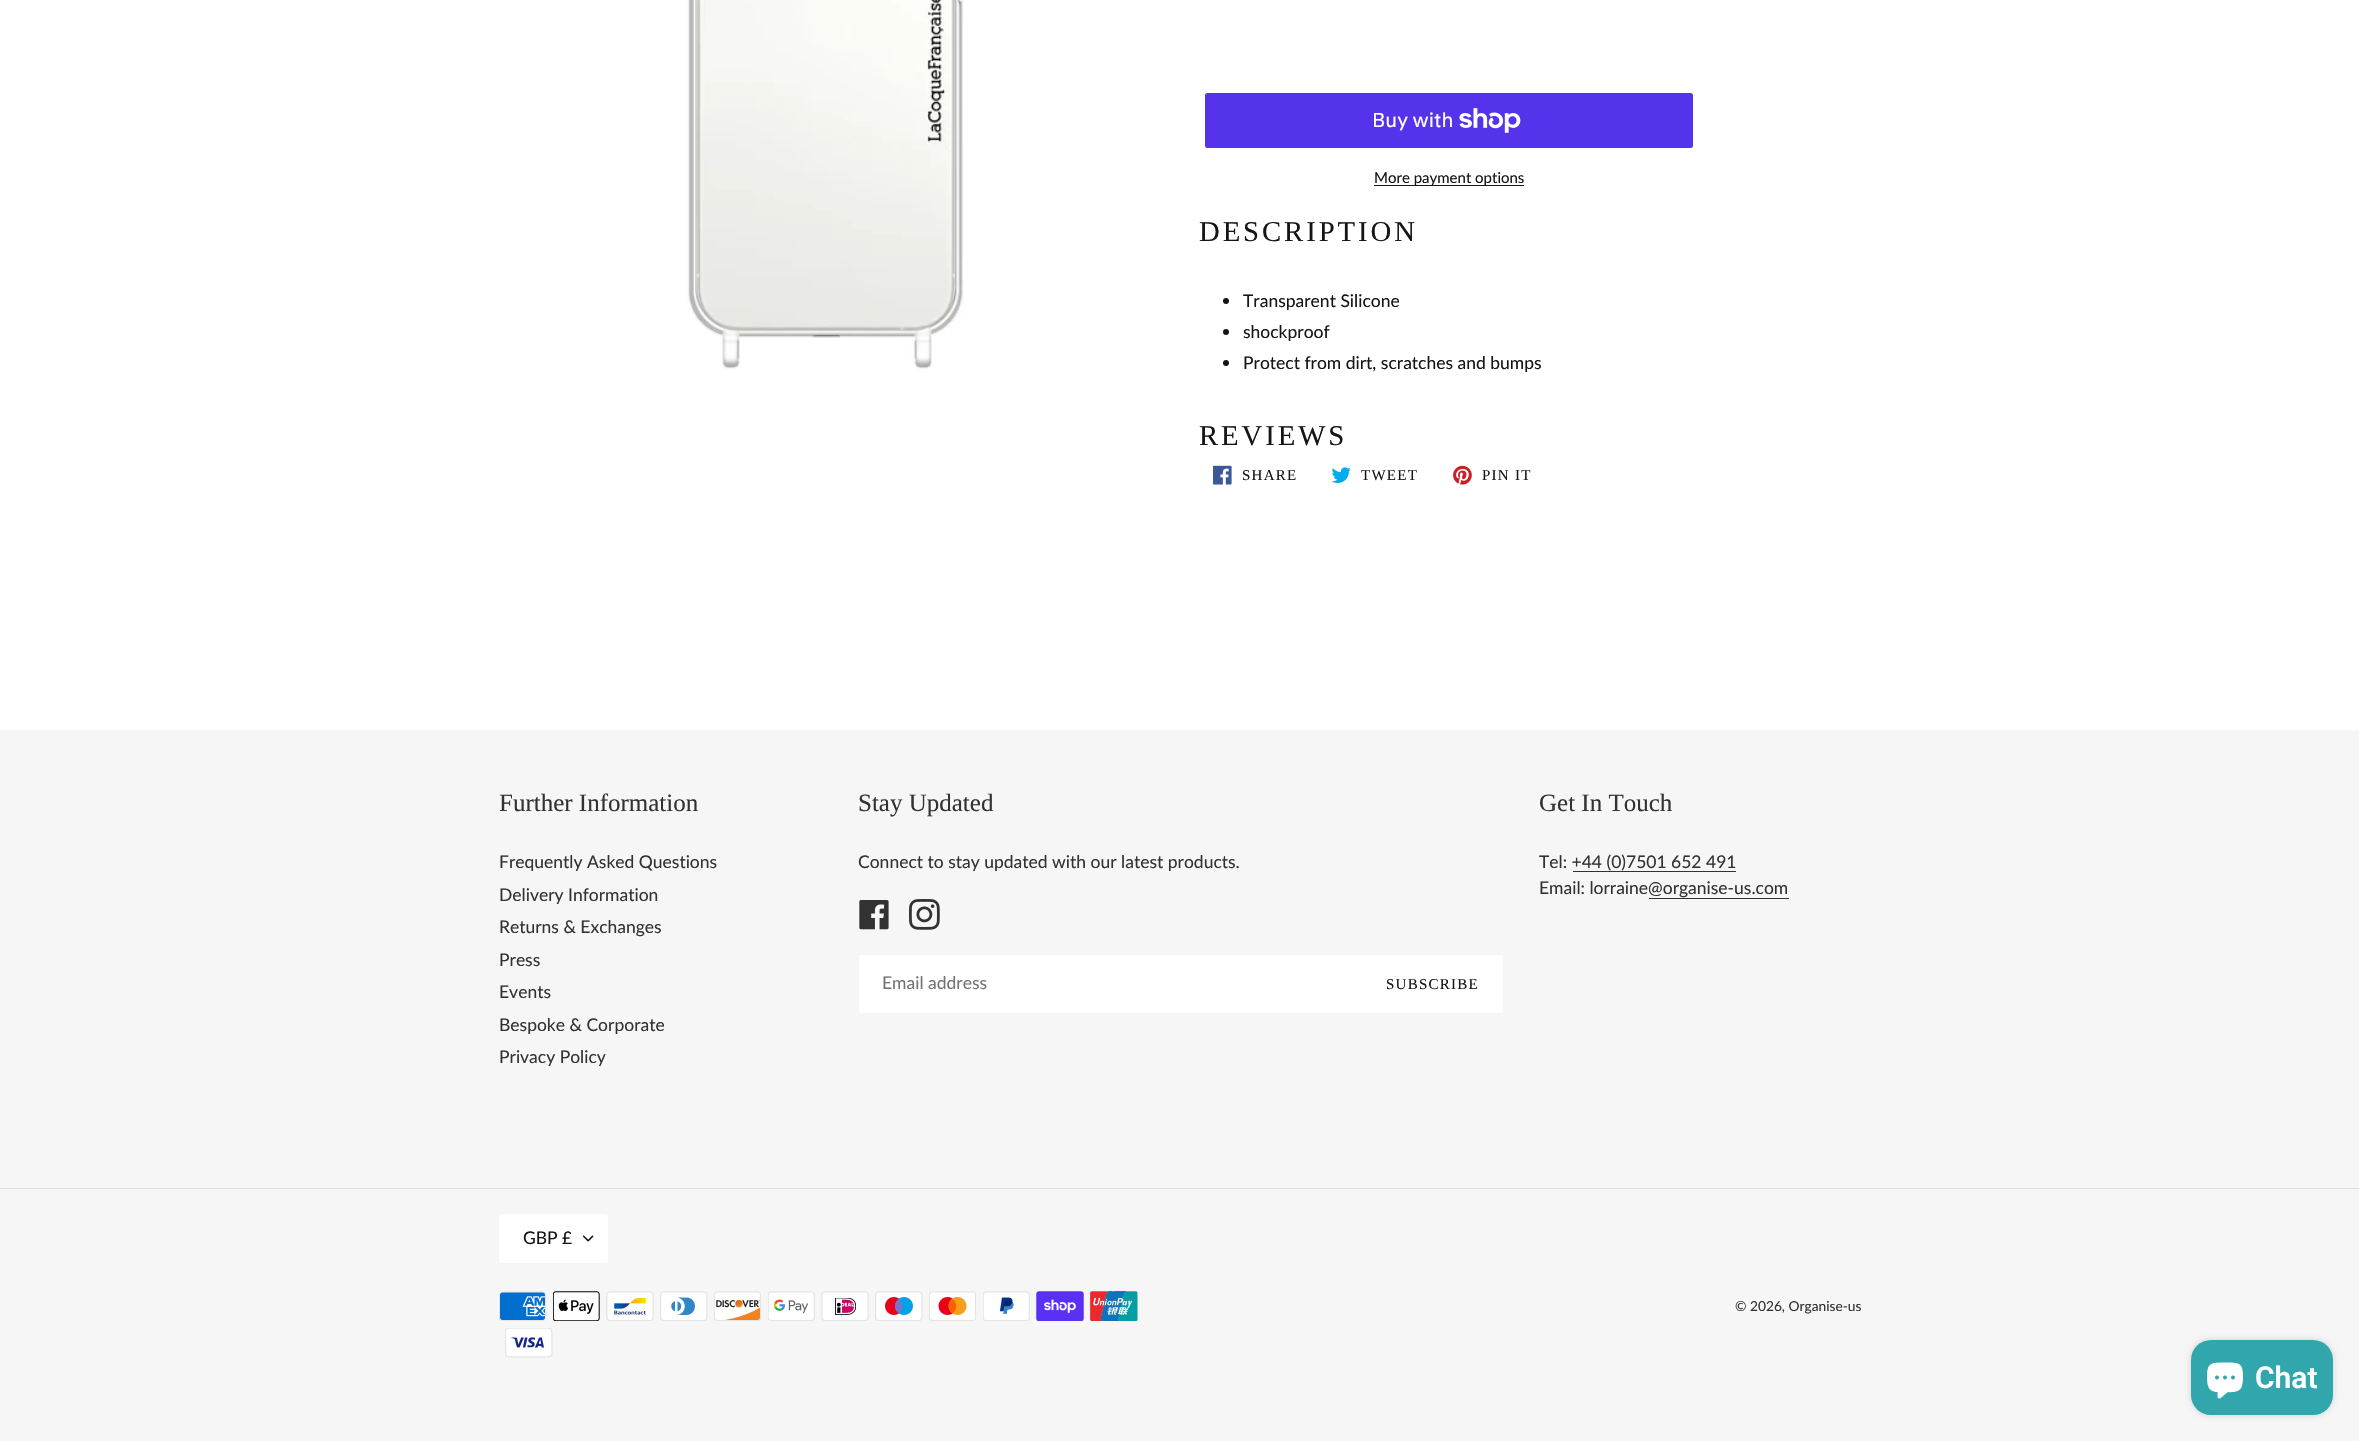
void draw(SkCanvas* canvas) {
	SkPaint paint;
	paint.setAntiAlias(true);
	auto spacedText = [&](const char* s, float x, float y, const SkFont& font, const SkPaint& ink, float letter, float word) {
		std::vector<SkGlyphID> glyphs(font.countText(s, strlen(s), SkTextEncoding::kUTF8));
		std::vector<float> xs(glyphs.size());
		font.textToGlyphs(s, strlen(s), SkTextEncoding::kUTF8, glyphs);
		font.getXPos(glyphs, xs, x);
		float extra = 0;
		for (size_t i = 0; i < glyphs.size(); i++) {
			xs[i] += extra;
			extra += letter + word * (glyphs[i] == font.unicharToGlyph(' '));
		}
		canvas->drawTextBlob(SkTextBlob::MakeFromPosHGlyphs(glyphs, xs, y, font), 0, 0, ink);
	};
	auto svgPath = [&](const char* data, bool evenOdd = false) {
		SkPath result = *SkParsePath::FromSVGString(data);
		if (evenOdd) result.setFillType(SkPathFillType::kEvenOdd);
		return result;
	};
	canvas->clear(0xffffffff);
	canvas->drawImageRect(SkImages::DeferredFromEncodedData(SkData::MakeFromFileName("img1.png")), SkRect::MakeXYWH(687, 0, 277, 372), SkSamplingOptions());
	paint.setColor(0xff5433eb);
	canvas->drawRoundRect(SkRect::MakeXYWH(1205, 93, 488, 55), 2.5, 2.5, paint);
	SkFont f1(fontMgr->matchFamilyStyle("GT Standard", SkFontStyle::Normal()), 20);
	f1.setSubpixel(true);
	paint.setColor(0xffffffff);
	canvas->drawString("Buy with", 1372, 127, f1, paint);
	canvas->drawImageRect(SkImages::DeferredFromEncodedData(SkData::MakeFromFileName("img2.png")), SkRect::MakeXYWH(1459, 108, 62, 25), SkSamplingOptions());
	paint.setColor(0xff161515);
	canvas->drawRect(SkRect::MakeXYWH(1374, 185, 150, 1), paint);
	SkFont f2(fontMgr->matchFamilyStyle("Lato", SkFontStyle::Normal()), 15);
	f2.setSubpixel(true);
	canvas->drawString("More payment options", 1374, 183, f2, paint);
	SkFont f3(fontMgr->matchFamilyStyle("Liberation Serif", SkFontStyle::Normal()), 28.75);
	f3.setSubpixel(true);
	spacedText("DESCRIPTION", 1199, 241, f3, paint, 2.9, 0);
	canvas->drawCircle(1226, 301, 3, paint);
	SkFont f4(fontMgr->matchFamilyStyle("Lato", SkFontStyle::Normal()), 17.5);
	f4.setSubpixel(true);
	canvas->drawString("Transparent Silicone", 1243, 307, f4, paint);
	canvas->drawCircle(1226, 332, 3, paint);
	canvas->drawString("shockproof", 1243, 338, f4, paint);
	canvas->drawCircle(1226, 363, 3, paint);
	canvas->drawString("Protect from dirt, scratches and bumps", 1243, 369, f4, paint);
	spacedText("REVIEWS", 1199, 445, f3, paint, 2.9, 0);
	canvas->drawImageRect(SkImages::DeferredFromEncodedData(SkData::MakeFromFileName("img3.png")), SkRect::MakeXYWH(1213, 465, 19, 20), SkSamplingOptions());
	SkFont f5(fontMgr->matchFamilyStyle("Liberation Serif", SkFontStyle::Normal()), 15);
	f5.setSubpixel(true);
	spacedText("SHARE", 1242, 480, f5, paint, 1.25, 0);
	canvas->drawImageRect(SkImages::DeferredFromEncodedData(SkData::MakeFromFileName("img4.png")), SkRect::MakeXYWH(1331, 467, 20, 16), SkSamplingOptions());
	spacedText("TWEET", 1361, 480, f5, paint, 1.25, 0);
	canvas->drawImageRect(SkImages::DeferredFromEncodedData(SkData::MakeFromFileName("img5.png")), SkRect::MakeXYWH(1453, 465, 19, 20), SkSamplingOptions());
	spacedText("PIN IT", 1482, 480, f5, paint, 1.25, 0);
	paint.setColor(0xfff6f6f6);
	canvas->drawRect(SkRect::MakeXYWH(0, 730, 2359, 711), paint);
	SkFont f6(fontMgr->matchFamilyStyle("Liberation Serif", SkFontStyle::Normal()), 25);
	f6.setSubpixel(true);
	paint.setColor(0xff333232);
	canvas->drawString("Further Information", 499, 811, f6, paint);
	canvas->drawString("Frequently Asked Questions", 499, 868, f4, paint);
	canvas->drawString("Delivery Information", 499, 901, f4, paint);
	canvas->drawString("Returns & Exchanges", 499, 933, f4, paint);
	canvas->drawString("Press", 499, 966, f4, paint);
	canvas->drawString("Events", 499, 998, f4, paint);
	canvas->drawString("Bespoke & Corporate", 499, 1031, f4, paint);
	canvas->drawString("Privacy Policy", 499, 1063, f4, paint);
	canvas->drawString("Stay Updated", 858, 811, f6, paint);
	canvas->drawString("Connect to stay updated with our latest products.", 858, 868, f4, paint);
	canvas->drawImageRect(SkImages::DeferredFromEncodedData(SkData::MakeFromFileName("img6.png")), SkRect::MakeXYWH(859, 900, 30, 30), SkSamplingOptions());
	canvas->drawImageRect(SkImages::DeferredFromEncodedData(SkData::MakeFromFileName("img7.png")), SkRect::MakeXYWH(909, 899, 31, 31), SkSamplingOptions());
	paint.setColor(0xffffffff);
	canvas->drawPath(svgPath("M861.5 955H1361V1013H861.5C860 1013 859 1012 859 1010.5V957.5C859 956 860 955 861.5 955Z"), paint);
	paint.setColor(0xff737373);
	canvas->drawString("Email address", 882, 989, f4, paint);
	paint.setColor(0xffffffff);
	canvas->drawPath(svgPath("M1361 955H1500.5C1502 955 1503 956 1503 957.5V1010.5C1503 1012 1502 1013 1500.5 1013H1361Z"), paint);
	paint.setColor(0xff161515);
	spacedText("SUBSCRIBE", 1386, 989, f5, paint, 1.25, 0);
	paint.setColor(0xff333232);
	canvas->drawString("Get In Touch", 1539, 811, f6, paint);
	canvas->drawString("Tel: +44 (0)7501 652 491", 1539, 868, f4, paint);
	canvas->drawRect(SkRect::MakeXYWH(1573, 871, 163, 1), paint);
	canvas->drawString("Email: lorraine@organise-us.com", 1539, 894, f4, paint);
	canvas->drawRect(SkRect::MakeXYWH(1649, 898, 140, 1), paint);
	paint.setColor(0xffdddddd);
	canvas->drawRect(SkRect::MakeXYWH(0, 1188, 2359, 1), paint);
	paint.setColor(0xffffffff);
	canvas->drawRoundRect(SkRect::MakeXYWH(499, 1214, 109, 49), 2.5, 2.5, paint);
	canvas->drawImageRect(SkImages::DeferredFromEncodedData(SkData::MakeFromFileName("img8.png")), SkRect::MakeXYWH(583, 1235, 11, 7), SkSamplingOptions());
	paint.setColor(0xff161515);
	canvas->drawString("GBP £", 523, 1244, f4, paint);
	canvas->drawImageRect(SkImages::DeferredFromEncodedData(SkData::MakeFromFileName("img9.png")), SkRect::MakeXYWH(499, 1291, 47, 30), SkSamplingOptions());
	canvas->drawImageRect(SkImages::DeferredFromEncodedData(SkData::MakeFromFileName("img10.png")), SkRect::MakeXYWH(553, 1291, 47, 30), SkSamplingOptions());
	canvas->drawImageRect(SkImages::DeferredFromEncodedData(SkData::MakeFromFileName("img11.png")), SkRect::MakeXYWH(606, 1291, 48, 30), SkSamplingOptions());
	canvas->drawImageRect(SkImages::DeferredFromEncodedData(SkData::MakeFromFileName("img12.png")), SkRect::MakeXYWH(660, 1291, 48, 30), SkSamplingOptions());
	canvas->drawImageRect(SkImages::DeferredFromEncodedData(SkData::MakeFromFileName("img13.png")), SkRect::MakeXYWH(714, 1291, 47, 30), SkSamplingOptions());
	canvas->drawImageRect(SkImages::DeferredFromEncodedData(SkData::MakeFromFileName("img14.png")), SkRect::MakeXYWH(768, 1291, 47, 30), SkSamplingOptions());
	canvas->drawImageRect(SkImages::DeferredFromEncodedData(SkData::MakeFromFileName("img15.png")), SkRect::MakeXYWH(821, 1291, 48, 30), SkSamplingOptions());
	canvas->drawImageRect(SkImages::DeferredFromEncodedData(SkData::MakeFromFileName("img16.png")), SkRect::MakeXYWH(875, 1291, 48, 30), SkSamplingOptions());
	canvas->drawImageRect(SkImages::DeferredFromEncodedData(SkData::MakeFromFileName("img17.png")), SkRect::MakeXYWH(929, 1291, 47, 30), SkSamplingOptions());
	canvas->drawImageRect(SkImages::DeferredFromEncodedData(SkData::MakeFromFileName("img18.png")), SkRect::MakeXYWH(983, 1291, 47, 30), SkSamplingOptions());
	canvas->drawImageRect(SkImages::DeferredFromEncodedData(SkData::MakeFromFileName("img19.png")), SkRect::MakeXYWH(1036, 1291, 48, 30), SkSamplingOptions());
	canvas->drawImageRect(SkImages::DeferredFromEncodedData(SkData::MakeFromFileName("img20.png")), SkRect::MakeXYWH(1090, 1291, 48, 30), SkSamplingOptions());
	canvas->drawImageRect(SkImages::DeferredFromEncodedData(SkData::MakeFromFileName("img21.png")), SkRect::MakeXYWH(505, 1328, 48, 30), SkSamplingOptions());
	SkFont f7(fontMgr->matchFamilyStyle("Lato", SkFontStyle::Normal()), 13.75);
	f7.setSubpixel(true);
	paint.setColor(0xff333232);
	canvas->drawString("© 2026, Organise-us", 1735, 1311, f7, paint);
	paint.setColor(0x26000000);
	paint.setMaskFilter(SkMaskFilter::MakeBlur(kNormal_SkBlurStyle, 3));
	canvas->drawRoundRect(SkRect::MakeXYWH(2191, 1340, 142, 75), 20, 20, paint);
	paint.setMaskFilter(nullptr);
	paint.setColor(0xff31a7ad);
	canvas->drawRoundRect(SkRect::MakeXYWH(2191, 1340, 142, 75), 20, 20, paint);
	canvas->drawImageRect(SkImages::DeferredFromEncodedData(SkData::MakeFromFileName("img22.png")), SkRect::MakeXYWH(2207, 1362, 36, 37), SkSamplingOptions());
	SkFont f8(fontMgr->matchFamilyStyle("Roboto", SkFontStyle(600, SkFontStyle::kNormal_Width, SkFontStyle::kUpright_Slant)), 30);
	f8.setSubpixel(true);
	paint.setColor(0xffffffff);
	canvas->drawString("Chat", 2255, 1388, f8, paint);
}
